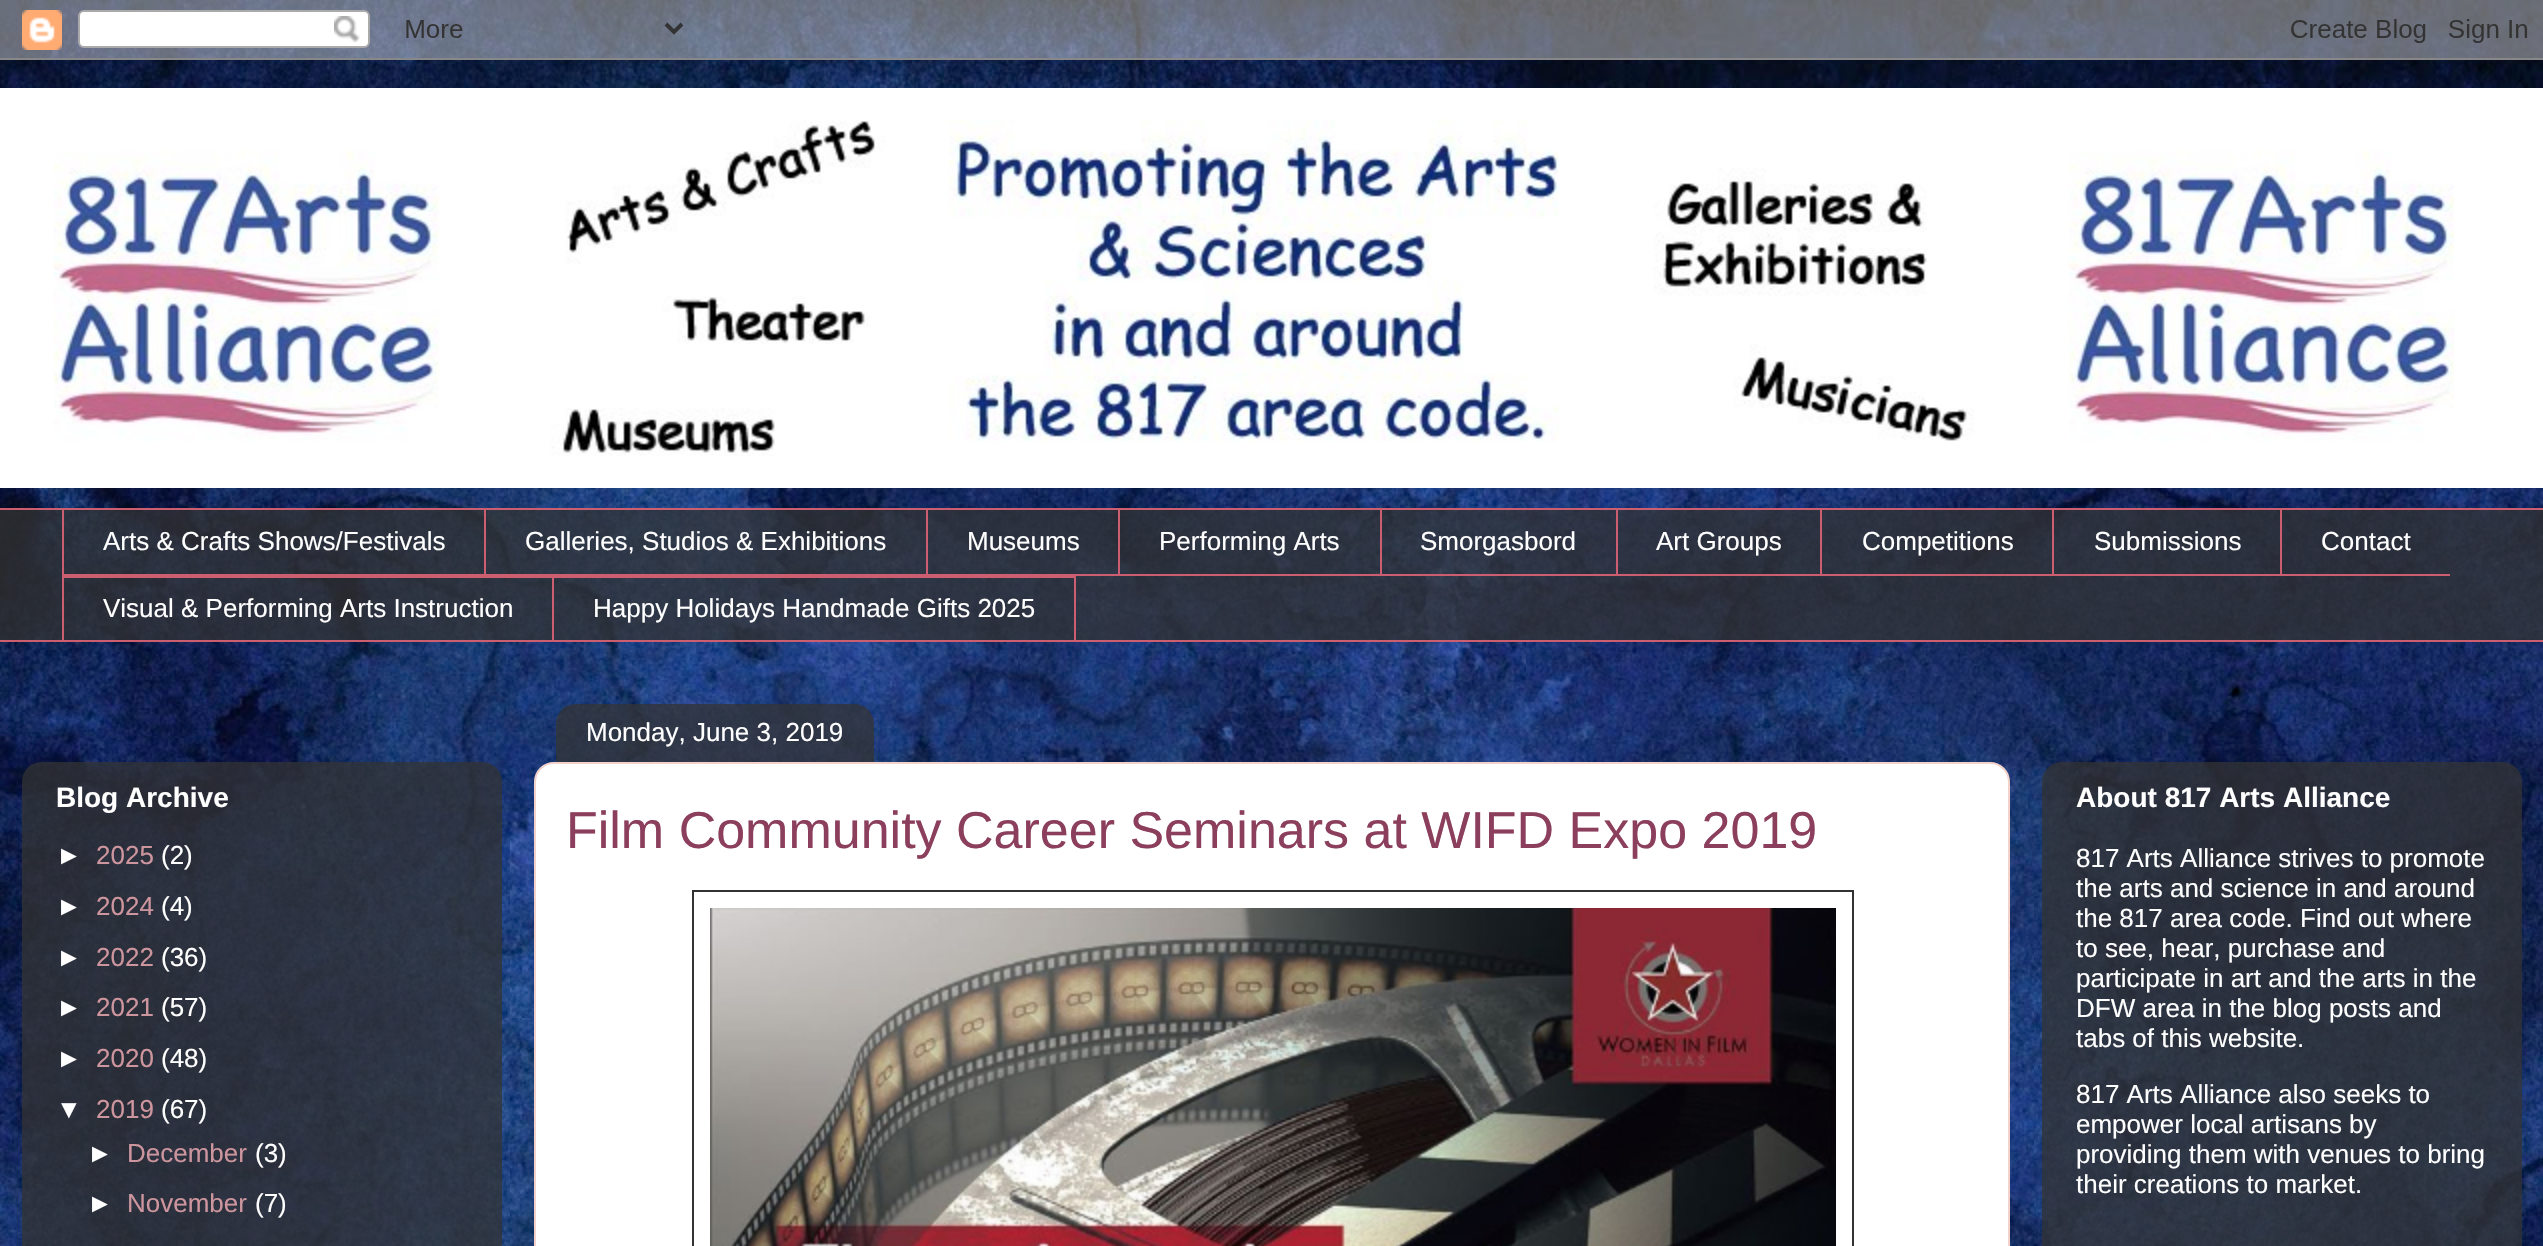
void draw(SkCanvas* canvas) {
	SkPaint paint;
	paint.setAntiAlias(true);
	auto svgPath = [&](const char* data, bool evenOdd = false) {
		SkPath result = *SkParsePath::FromSVGString(data);
		if (evenOdd) result.setFillType(SkPathFillType::kEvenOdd);
		return result;
	};
	canvas->clear(0xffffffff);
	canvas->drawImageRect(SkImages::DeferredFromEncodedData(SkData::MakeFromFileName("img1.png")), SkRect::MakeXYWH(0, 0, 2543, 1246), SkSamplingOptions());
	canvas->drawImageRect(SkImages::DeferredFromEncodedData(SkData::MakeFromFileName("img2.png")), SkRect::MakeXYWH(0, 0, 2543, 60), SkSamplingOptions());
	paint.setColor(0xffffffff);
	canvas->drawRect(SkRect::MakeXYWH(0, 88, 2543, 400), paint);
	canvas->drawImageRect(SkImages::DeferredFromEncodedData(SkData::MakeFromFileName("img3.png")), SkRect::MakeXYWH(54, 119, 2400, 337), SkSamplingOptions());
	paint.setColor(0xbf333333);
	canvas->drawRect(SkRect::MakeXYWH(0, 510, 2543, 130), paint);
	paint.setColor(0xffcd5e6f);
	canvas->drawRect(SkRect::MakeXYWH(0, 508, 2543, 2), paint);
	canvas->drawRect(SkRect::MakeXYWH(62, 574, 2388, 2), paint);
	canvas->drawRect(SkRect::MakeXYWH(62, 508, 2, 68), paint);
	SkFont f1(fontMgr->matchFamilyStyle("Liberation Sans", SkFontStyle::Normal()), 26);
	f1.setSubpixel(true);
	paint.setColor(0xffffffff);
	canvas->drawString("Arts & Crafts Shows/Festivals", 103, 550, f1, paint);
	paint.setColor(0xffcd5e6f);
	canvas->drawRect(SkRect::MakeXYWH(484, 508, 2, 68), paint);
	paint.setColor(0xffffffff);
	canvas->drawString("Galleries, Studios & Exhibitions", 525, 550, f1, paint);
	paint.setColor(0xffcd5e6f);
	canvas->drawRect(SkRect::MakeXYWH(926, 508, 2, 68), paint);
	paint.setColor(0xffffffff);
	canvas->drawString("Museums", 967, 550, f1, paint);
	paint.setColor(0xffcd5e6f);
	canvas->drawRect(SkRect::MakeXYWH(1118, 508, 2, 68), paint);
	paint.setColor(0xffffffff);
	canvas->drawString("Performing Arts", 1159, 550, f1, paint);
	paint.setColor(0xffcd5e6f);
	canvas->drawRect(SkRect::MakeXYWH(1380, 508, 2, 68), paint);
	paint.setColor(0xffffffff);
	canvas->drawString("Smorgasbord", 1420, 550, f1, paint);
	paint.setColor(0xffcd5e6f);
	canvas->drawRect(SkRect::MakeXYWH(1616, 508, 2, 68), paint);
	paint.setColor(0xffffffff);
	canvas->drawString("Art Groups", 1656, 550, f1, paint);
	paint.setColor(0xffcd5e6f);
	canvas->drawRect(SkRect::MakeXYWH(1820, 508, 2, 68), paint);
	paint.setColor(0xffffffff);
	canvas->drawString("Competitions", 1862, 550, f1, paint);
	paint.setColor(0xffcd5e6f);
	canvas->drawRect(SkRect::MakeXYWH(2052, 508, 2, 68), paint);
	paint.setColor(0xffffffff);
	canvas->drawString("Submissions", 2094, 550, f1, paint);
	paint.setColor(0xffcd5e6f);
	canvas->drawRect(SkRect::MakeXYWH(2280, 508, 2, 68), paint);
	paint.setColor(0xffffffff);
	canvas->drawString("Contact", 2321, 550, f1, paint);
	paint.setColor(0xffcd5e6f);
	canvas->drawRect(SkRect::MakeXYWH(62, 576, 490, 2), paint);
	canvas->drawRect(SkRect::MakeXYWH(62, 576, 2, 66), paint);
	paint.setColor(0xffffffff);
	canvas->drawString("Visual & Performing Arts Instruction", 103, 617, f1, paint);
	paint.setStroke(true);
	paint.setStrokeWidth(2);
	paint.setColor(0xffcd5e6f);
	canvas->drawRect(SkRect::MakeXYWH(553, 577, 522, 64), paint);
	paint.setStroke(false);
	paint.setColor(0xffffffff);
	canvas->drawString("Happy Holidays Handmade Gifts 2025", 593, 617, f1, paint);
	paint.setColor(0xffcd5e6f);
	canvas->drawRect(SkRect::MakeXYWH(0, 640, 2543, 2), paint);
	canvas->drawImageRect(SkImages::DeferredFromEncodedData(SkData::MakeFromFileName("img4.png")), SkRect::MakeXYWH(22, 762, 480, 484), SkSamplingOptions());
	SkFont f2(fontMgr->matchFamilyStyle("Liberation Sans", SkFontStyle::Bold()), 28);
	f2.setSubpixel(true);
	paint.setColor(0xffffffff);
	canvas->drawString("Blog Archive", 56, 807, f2, paint);
	canvas->drawString("►", 56, 864, f1, paint);
	paint.setColor(0xffcd959d);
	canvas->drawString("2025", 96, 864, f1, paint);
	paint.setColor(0xffffffff);
	canvas->drawString("(2)", 161, 864, f1, paint);
	canvas->drawString("►", 56, 915, f1, paint);
	paint.setColor(0xffcd959d);
	canvas->drawString("2024", 96, 915, f1, paint);
	paint.setColor(0xffffffff);
	canvas->drawString("(4)", 161, 915, f1, paint);
	canvas->drawString("►", 56, 966, f1, paint);
	paint.setColor(0xffcd959d);
	canvas->drawString("2022", 96, 966, f1, paint);
	paint.setColor(0xffffffff);
	canvas->drawString("(36)", 161, 966, f1, paint);
	canvas->drawString("►", 56, 1016, f1, paint);
	paint.setColor(0xffcd959d);
	canvas->drawString("2021", 96, 1016, f1, paint);
	paint.setColor(0xffffffff);
	canvas->drawString("(57)", 161, 1016, f1, paint);
	canvas->drawString("►", 56, 1067, f1, paint);
	paint.setColor(0xffcd959d);
	canvas->drawString("2020", 96, 1067, f1, paint);
	paint.setColor(0xffffffff);
	canvas->drawString("(48)", 161, 1067, f1, paint);
	canvas->drawString("▼", 56, 1118, f1, paint);
	paint.setColor(0xffcd959d);
	canvas->drawString("2019", 96, 1118, f1, paint);
	paint.setColor(0xffffffff);
	canvas->drawString("(67)", 161, 1118, f1, paint);
	canvas->drawString("►", 87, 1162, f1, paint);
	paint.setColor(0xffcd959d);
	canvas->drawString("December", 127, 1162, f1, paint);
	paint.setColor(0xffffffff);
	canvas->drawString("(3)", 255, 1162, f1, paint);
	canvas->drawString("►", 87, 1212, f1, paint);
	paint.setColor(0xffcd959d);
	canvas->drawString("November", 127, 1212, f1, paint);
	paint.setColor(0xffffffff);
	canvas->drawString("(7)", 255, 1212, f1, paint);
	canvas->drawPath(svgPath("M554 763H1990C2000.5 763 2009 771.5 2009 782V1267H535V782C535 771.5 543.5 763 554 763Z"), paint);
	paint.setStroke(true);
	paint.setColor(0xfff3d2cb);
	canvas->drawPath(svgPath("M554 763H1990C2000.5 763 2009 771.5 2009 782V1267H535V782C535 771.5 543.5 763 554 763Z"), paint);
	canvas->drawImageRect(SkImages::DeferredFromEncodedData(SkData::MakeFromFileName("img5.png")), SkRect::MakeXYWH(556, 704, 318, 58), SkSamplingOptions());
	paint.setStroke(false);
	paint.setColor(0xffffffff);
	canvas->drawString("Monday, June 3, 2019", 586, 741, f1, paint);
	SkFont f3(fontMgr->matchFamilyStyle("Liberation Sans", SkFontStyle::Normal()), 52);
	f3.setSubpixel(true);
	paint.setColor(0xff8c3f5c);
	canvas->drawString("Film Community Career Seminars at WIFD Expo 2019", 566, 848, f3, paint);
	paint.setStroke(true);
	paint.setColor(0xff323232);
	canvas->drawRect(SkRect::MakeXYWH(693, 891, 1160, 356), paint);
	canvas->drawImageRect(SkImages::DeferredFromEncodedData(SkData::MakeFromFileName("img6.png")), SkRect::MakeXYWH(710, 908, 1126, 338), SkSamplingOptions());
	canvas->drawImageRect(SkImages::DeferredFromEncodedData(SkData::MakeFromFileName("img7.png")), SkRect::MakeXYWH(2042, 762, 480, 484), SkSamplingOptions());
	paint.setStroke(false);
	paint.setColor(0xffffffff);
	canvas->drawString("About 817 Arts Alliance", 2076, 807, f2, paint);
	canvas->drawString("817 Arts Alliance strives to promote", 2076, 867, f1, paint);
	canvas->drawString("the arts and science in and around", 2076, 897, f1, paint);
	canvas->drawString("the 817 area code. Find out where", 2076, 927, f1, paint);
	canvas->drawString("to see, hear, purchase and", 2076, 957, f1, paint);
	canvas->drawString("participate in art and the arts in the", 2076, 987, f1, paint);
	canvas->drawString("DFW area in the blog posts and", 2076, 1017, f1, paint);
	canvas->drawString("tabs of this website.", 2076, 1047, f1, paint);
	canvas->drawString("817 Arts Alliance also seeks to", 2076, 1103, f1, paint);
	canvas->drawString("empower local artisans by", 2076, 1133, f1, paint);
	canvas->drawString("providing them with venues to bring", 2076, 1163, f1, paint);
	canvas->drawString("their creations to market.", 2076, 1193, f1, paint);
}
